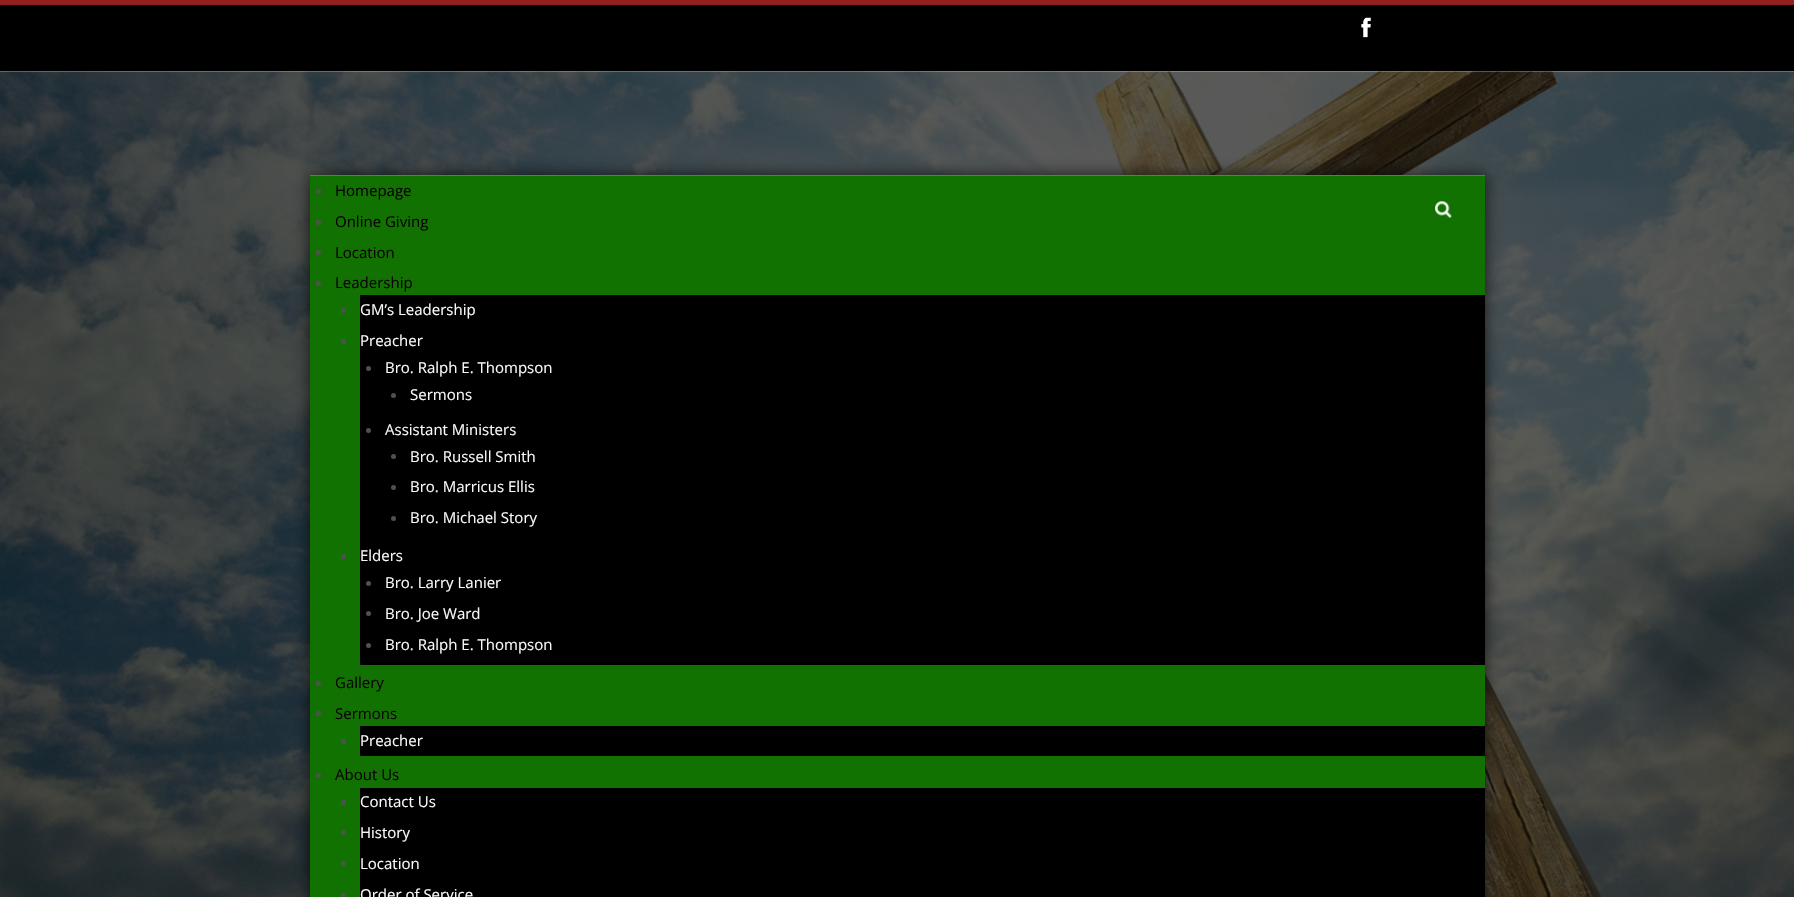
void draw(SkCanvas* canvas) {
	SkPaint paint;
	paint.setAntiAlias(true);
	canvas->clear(0xffffffff);
	paint.setColor(0xff000000);
	canvas->drawRect(SkRect::MakeXYWH(0, 5, 1794, 66), paint);
	paint.setColor(0xff931f1f);
	canvas->drawRect(SkRect::MakeXYWH(0, 0, 1794, 5), paint);
	canvas->drawImageRect(SkImages::DeferredFromEncodedData(SkData::MakeFromFileName("img1.png")), SkRect::MakeXYWH(1361, 17, 10, 21), SkSamplingOptions());
	canvas->drawImageRect(SkImages::DeferredFromEncodedData(SkData::MakeFromFileName("img2.png")), SkRect::MakeXYWH(0, 71, 1794, 826), SkSamplingOptions());
	paint.setColor(0xb3000000);
	paint.setMaskFilter(SkMaskFilter::MakeBlur(kNormal_SkBlurStyle, 7.5));
	canvas->drawRect(SkRect::MakeXYWH(310, 175, 1175, 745), paint);
	paint.setMaskFilter(nullptr);
	paint.setColor(0xff127201);
	canvas->drawRect(SkRect::MakeXYWH(310, 176, 1175, 721), paint);
	paint.setColor(0xffa05858);
	canvas->drawRect(SkRect::MakeXYWH(310, 175, 1175, 1), paint);
	paint.setColor(0xff505050);
	canvas->drawCircle(318.5, 191.5, 2.5, paint);
	SkFont f1(fontMgr->matchFamilyStyle("Open Sans", SkFontStyle::Normal()), 15);
	f1.setSubpixel(true);
	paint.setColor(0xff070305);
	canvas->drawString("Homepage", 335, 196, f1, paint);
	paint.setColor(0xff505050);
	canvas->drawCircle(318.5, 222.5, 2.5, paint);
	paint.setColor(0xff070305);
	canvas->drawString("Online Giving", 335, 227, f1, paint);
	paint.setColor(0xff505050);
	canvas->drawCircle(318.5, 252.5, 2.5, paint);
	paint.setColor(0xff070305);
	canvas->drawString("Location", 335, 258, f1, paint);
	paint.setColor(0xff505050);
	canvas->drawCircle(318.5, 283.5, 2.5, paint);
	paint.setColor(0xff070305);
	canvas->drawString("Leadership", 335, 288, f1, paint);
	paint.setColor(0xff000000);
	canvas->drawRect(SkRect::MakeXYWH(360, 295, 1125, 370), paint);
	paint.setColor(0xff505050);
	canvas->drawCircle(343.5, 310.5, 2.5, paint);
	paint.setColor(0xfff9f9f9);
	canvas->drawString("GM’s Leadership", 360, 315, f1, paint);
	paint.setColor(0xff505050);
	canvas->drawCircle(343.5, 341.5, 2.5, paint);
	paint.setColor(0xfff9f9f9);
	canvas->drawString("Preacher", 360, 346, f1, paint);
	paint.setColor(0xff505050);
	canvas->drawCircle(368.5, 368.5, 2.5, paint);
	paint.setColor(0xfff9f9f9);
	canvas->drawString("Bro. Ralph E. Thompson", 385, 373, f1, paint);
	paint.setColor(0xff505050);
	canvas->drawCircle(393.5, 395.5, 2.5, paint);
	paint.setColor(0xfff9f9f9);
	canvas->drawString("Sermons", 410, 400, f1, paint);
	paint.setColor(0xff505050);
	canvas->drawCircle(368.5, 430.5, 2.5, paint);
	paint.setColor(0xfff9f9f9);
	canvas->drawString("Assistant Ministers", 385, 435, f1, paint);
	paint.setColor(0xff505050);
	canvas->drawCircle(393.5, 456.5, 2.5, paint);
	paint.setColor(0xfff9f9f9);
	canvas->drawString("Bro. Russell Smith", 410, 462, f1, paint);
	paint.setColor(0xff505050);
	canvas->drawCircle(393.5, 487.5, 2.5, paint);
	paint.setColor(0xfff9f9f9);
	canvas->drawString("Bro. Marricus Ellis", 410, 492, f1, paint);
	paint.setColor(0xff505050);
	canvas->drawCircle(393.5, 518.5, 2.5, paint);
	paint.setColor(0xfff9f9f9);
	canvas->drawString("Bro. Michael Story", 410, 523, f1, paint);
	paint.setColor(0xff505050);
	canvas->drawCircle(343.5, 556.5, 2.5, paint);
	paint.setColor(0xfff9f9f9);
	canvas->drawString("Elders", 360, 561, f1, paint);
	paint.setColor(0xff505050);
	canvas->drawCircle(368.5, 583.5, 2.5, paint);
	paint.setColor(0xfff9f9f9);
	canvas->drawString("Bro. Larry Lanier", 385, 588, f1, paint);
	paint.setColor(0xff505050);
	canvas->drawCircle(368.5, 613.5, 2.5, paint);
	paint.setColor(0xfff9f9f9);
	canvas->drawString("Bro. Joe Ward", 385, 619, f1, paint);
	paint.setColor(0xff505050);
	canvas->drawCircle(368.5, 645.5, 2.5, paint);
	paint.setColor(0xfff9f9f9);
	canvas->drawString("Bro. Ralph E. Thompson", 385, 650, f1, paint);
	paint.setColor(0xff505050);
	canvas->drawCircle(318.5, 683.5, 2.5, paint);
	paint.setColor(0xff070305);
	canvas->drawString("Gallery", 335, 688, f1, paint);
	paint.setColor(0xff505050);
	canvas->drawCircle(318.5, 713.5, 2.5, paint);
	paint.setColor(0xff070305);
	canvas->drawString("Sermons", 335, 719, f1, paint);
	paint.setColor(0xff000000);
	canvas->drawRect(SkRect::MakeXYWH(360, 726, 1125, 30), paint);
	paint.setColor(0xff505050);
	canvas->drawCircle(343.5, 741.5, 2.5, paint);
	paint.setColor(0xfff9f9f9);
	canvas->drawString("Preacher", 360, 746, f1, paint);
	paint.setColor(0xff505050);
	canvas->drawCircle(318.5, 775.5, 2.5, paint);
	paint.setColor(0xff070305);
	canvas->drawString("About Us", 335, 780, f1, paint);
	paint.setColor(0xff000000);
	canvas->drawRect(SkRect::MakeXYWH(360, 788, 1125, 109), paint);
	paint.setColor(0xff505050);
	canvas->drawCircle(343.5, 802.5, 2.5, paint);
	paint.setColor(0xfff9f9f9);
	canvas->drawString("Contact Us", 360, 807, f1, paint);
	paint.setColor(0xff505050);
	canvas->drawCircle(343.5, 832.5, 2.5, paint);
	paint.setColor(0xfff9f9f9);
	canvas->drawString("History", 360, 838, f1, paint);
	paint.setColor(0xff505050);
	canvas->drawCircle(343.5, 863.5, 2.5, paint);
	paint.setColor(0xfff9f9f9);
	canvas->drawString("Location", 360, 869, f1, paint);
	paint.setColor(0xff505050);
	canvas->drawCircle(343.5, 895.5, 2.5, paint);
	paint.setColor(0xfff9f9f9);
	canvas->drawString("Order of Service", 360, 900, f1, paint);
	canvas->drawImageRect(SkImages::DeferredFromEncodedData(SkData::MakeFromFileName("img3.png")), SkRect::MakeXYWH(1435, 201, 17, 17), SkSamplingOptions());
}
